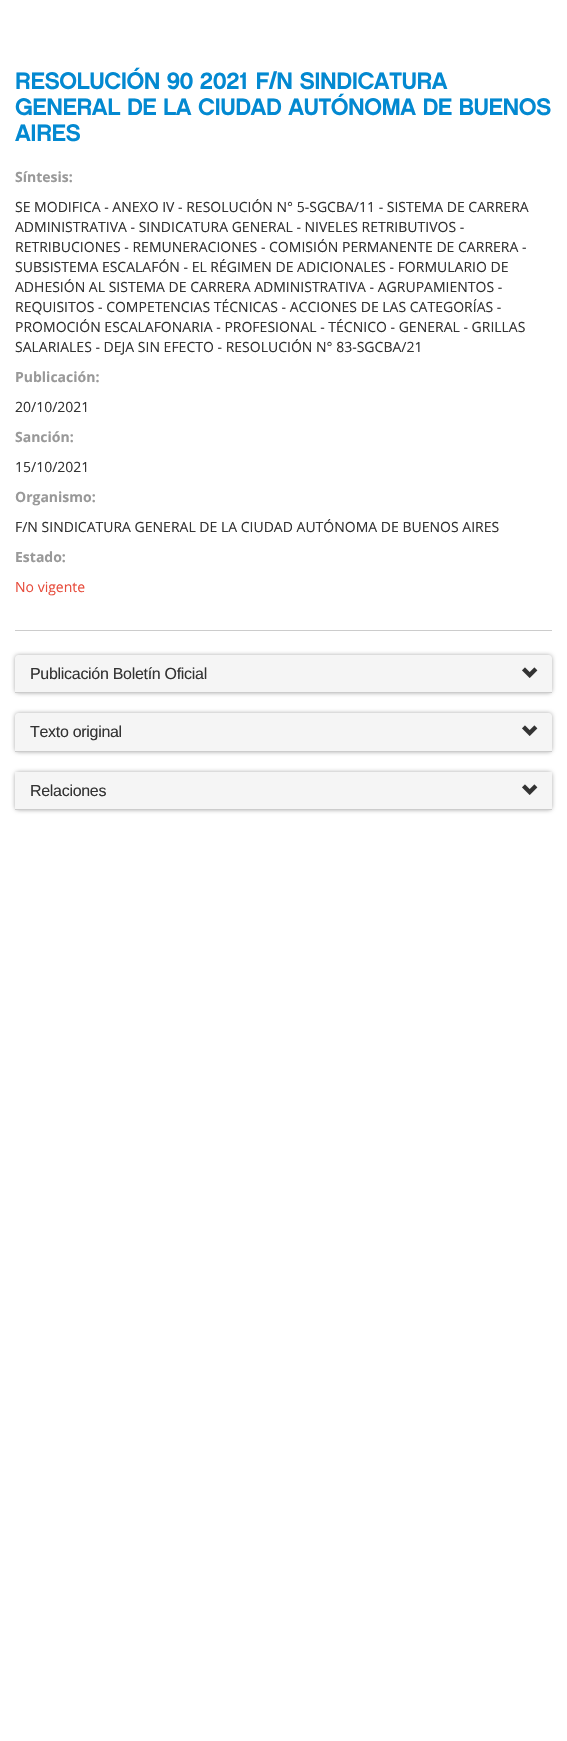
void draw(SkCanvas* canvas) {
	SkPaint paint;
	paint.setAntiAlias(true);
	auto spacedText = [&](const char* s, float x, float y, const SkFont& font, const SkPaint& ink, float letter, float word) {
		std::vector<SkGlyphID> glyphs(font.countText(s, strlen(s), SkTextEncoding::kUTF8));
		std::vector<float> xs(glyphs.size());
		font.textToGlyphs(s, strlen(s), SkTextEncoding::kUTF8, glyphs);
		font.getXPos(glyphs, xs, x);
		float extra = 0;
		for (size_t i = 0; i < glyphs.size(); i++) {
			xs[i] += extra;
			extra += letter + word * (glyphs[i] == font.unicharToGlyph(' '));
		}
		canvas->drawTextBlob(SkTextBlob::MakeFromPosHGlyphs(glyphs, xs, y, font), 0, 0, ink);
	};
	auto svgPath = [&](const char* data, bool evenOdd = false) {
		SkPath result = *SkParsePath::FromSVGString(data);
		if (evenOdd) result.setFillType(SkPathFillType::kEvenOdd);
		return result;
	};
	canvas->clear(0xffffffff);
	SkFont f1(fontMgr->matchFamilyStyle("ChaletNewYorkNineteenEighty", SkFontStyle(500, SkFontStyle::kNormal_Width, SkFontStyle::kUpright_Slant)), 23.8);
	f1.setSubpixel(true);
	paint.setColor(0xff0389d1);
	spacedText("RESOLUCIÓN 90 2021 F/N SINDICATURA", 15, 89, f1, paint, -0.5, 0);
	spacedText("GENERAL DE LA CIUDAD AUTÓNOMA DE BUENOS", 15, 115, f1, paint, -0.5, 0);
	spacedText("AIRES", 15, 141, f1, paint, -0.5, 0);
	SkFont f2(fontMgr->matchFamilyStyle("Open Sans", SkFontStyle::Bold()), 14);
	f2.setSubpixel(true);
	paint.setColor(0xff999999);
	canvas->drawString("Síntesis:", 15, 182, f2, paint);
	SkFont f3(fontMgr->matchFamilyStyle("Open Sans", SkFontStyle::Normal()), 14);
	f3.setSubpixel(true);
	paint.setColor(0xff333333);
	canvas->drawString("SE MODIFICA - ANEXO IV - RESOLUCIÓN N° 5-SGCBA/11 - SISTEMA DE CARRERA", 15, 212, f3, paint);
	canvas->drawString("ADMINISTRATIVA - SINDICATURA GENERAL - NIVELES RETRIBUTIVOS -", 15, 232, f3, paint);
	canvas->drawString("RETRIBUCIONES - REMUNERACIONES - COMISIÓN PERMANENTE DE CARRERA -", 15, 252, f3, paint);
	canvas->drawString("SUBSISTEMA ESCALAFÓN - EL RÉGIMEN DE ADICIONALES - FORMULARIO DE", 15, 272, f3, paint);
	canvas->drawString("ADHESIÓN AL SISTEMA DE CARRERA ADMINISTRATIVA - AGRUPAMIENTOS -", 15, 292, f3, paint);
	canvas->drawString("REQUISITOS - COMPETENCIAS TÉCNICAS - ACCIONES DE LAS CATEGORÍAS -", 15, 312, f3, paint);
	canvas->drawString("PROMOCIÓN ESCALAFONARIA - PROFESIONAL - TÉCNICO - GENERAL - GRILLAS", 15, 332, f3, paint);
	canvas->drawString("SALARIALES - DEJA SIN EFECTO - RESOLUCIÓN N° 83-SGCBA/21", 15, 352, f3, paint);
	paint.setColor(0xff999999);
	canvas->drawString("Publicación:", 15, 382, f2, paint);
	paint.setColor(0xff333333);
	canvas->drawString("20/10/2021", 15, 412, f3, paint);
	paint.setColor(0xff999999);
	canvas->drawString("Sanción:", 15, 442, f2, paint);
	paint.setColor(0xff333333);
	canvas->drawString("15/10/2021", 15, 472, f3, paint);
	paint.setColor(0xff999999);
	canvas->drawString("Organismo:", 15, 502, f2, paint);
	paint.setColor(0xff333333);
	canvas->drawString("F/N SINDICATURA GENERAL DE LA CIUDAD AUTÓNOMA DE BUENOS AIRES", 15, 532, f3, paint);
	paint.setColor(0xff999999);
	canvas->drawString("Estado:", 15, 562, f2, paint);
	paint.setColor(0xffe74c3c);
	canvas->drawString("No vigente", 15, 592, f3, paint);
	paint.setColor(0xffcccccc);
	canvas->drawRect(SkRect::MakeXYWH(15, 630, 537, 1), paint);
	paint.setColor(0xffaaaaaa);
	paint.setMaskFilter(SkMaskFilter::MakeBlur(kNormal_SkBlurStyle, 2));
	canvas->drawRoundRect(SkRect::MakeXYWH(15, 655, 537, 38), 4, 4, paint);
	paint.setMaskFilter(nullptr);
	paint.setColor(0xfff5f5f5);
	canvas->drawPath(svgPath("M18 655H549C550.5 655 552 656.5 552 658V693H15V658C15 656.5 16.5 655 18 655Z"), paint);
	paint.setColor(0xffcccccc);
	canvas->drawRect(SkRect::MakeXYWH(15, 692, 537, 1), paint);
	SkFont f4(fontMgr->matchFamilyStyle("Liberation Sans", SkFontStyle::Normal()), 16);
	f4.setSubpixel(true);
	paint.setColor(0xff333333);
	spacedText("Publicación Boletín Oficial", 30, 679, f4, paint, -0.3, 0);
	canvas->drawImageRect(SkImages::DeferredFromEncodedData(SkData::MakeFromFileName("img1.png")), SkRect::MakeXYWH(522, 667, 16, 11), SkSamplingOptions());
	paint.setColor(0xffaaaaaa);
	paint.setMaskFilter(SkMaskFilter::MakeBlur(kNormal_SkBlurStyle, 2));
	canvas->drawRoundRect(SkRect::MakeXYWH(15, 713, 537, 39), 4, 4, paint);
	paint.setMaskFilter(nullptr);
	paint.setColor(0xfff5f5f5);
	canvas->drawPath(svgPath("M18 713H549C550.5 713 552 714.5 552 716V752H15V716C15 714.5 16.5 713 18 713Z"), paint);
	paint.setColor(0xffcccccc);
	canvas->drawRect(SkRect::MakeXYWH(15, 751, 537, 1), paint);
	paint.setColor(0xff333333);
	spacedText("Texto original", 30, 737, f4, paint, -0.3, 0);
	canvas->drawImageRect(SkImages::DeferredFromEncodedData(SkData::MakeFromFileName("img1.png")), SkRect::MakeXYWH(522, 725, 16, 11), SkSamplingOptions());
	paint.setColor(0xffaaaaaa);
	paint.setMaskFilter(SkMaskFilter::MakeBlur(kNormal_SkBlurStyle, 2));
	canvas->drawRoundRect(SkRect::MakeXYWH(15, 772, 537, 38), 4, 4, paint);
	paint.setMaskFilter(nullptr);
	paint.setColor(0xfff5f5f5);
	canvas->drawRect(SkRect::MakeXYWH(15, 772, 537, 37), paint);
	paint.setColor(0xffcccccc);
	canvas->drawRect(SkRect::MakeXYWH(15, 809, 537, 1), paint);
	paint.setColor(0xff333333);
	spacedText("Relaciones", 30, 796, f4, paint, -0.3, 0);
	canvas->drawImageRect(SkImages::DeferredFromEncodedData(SkData::MakeFromFileName("img1.png")), SkRect::MakeXYWH(522, 784, 16, 11), SkSamplingOptions());
}
